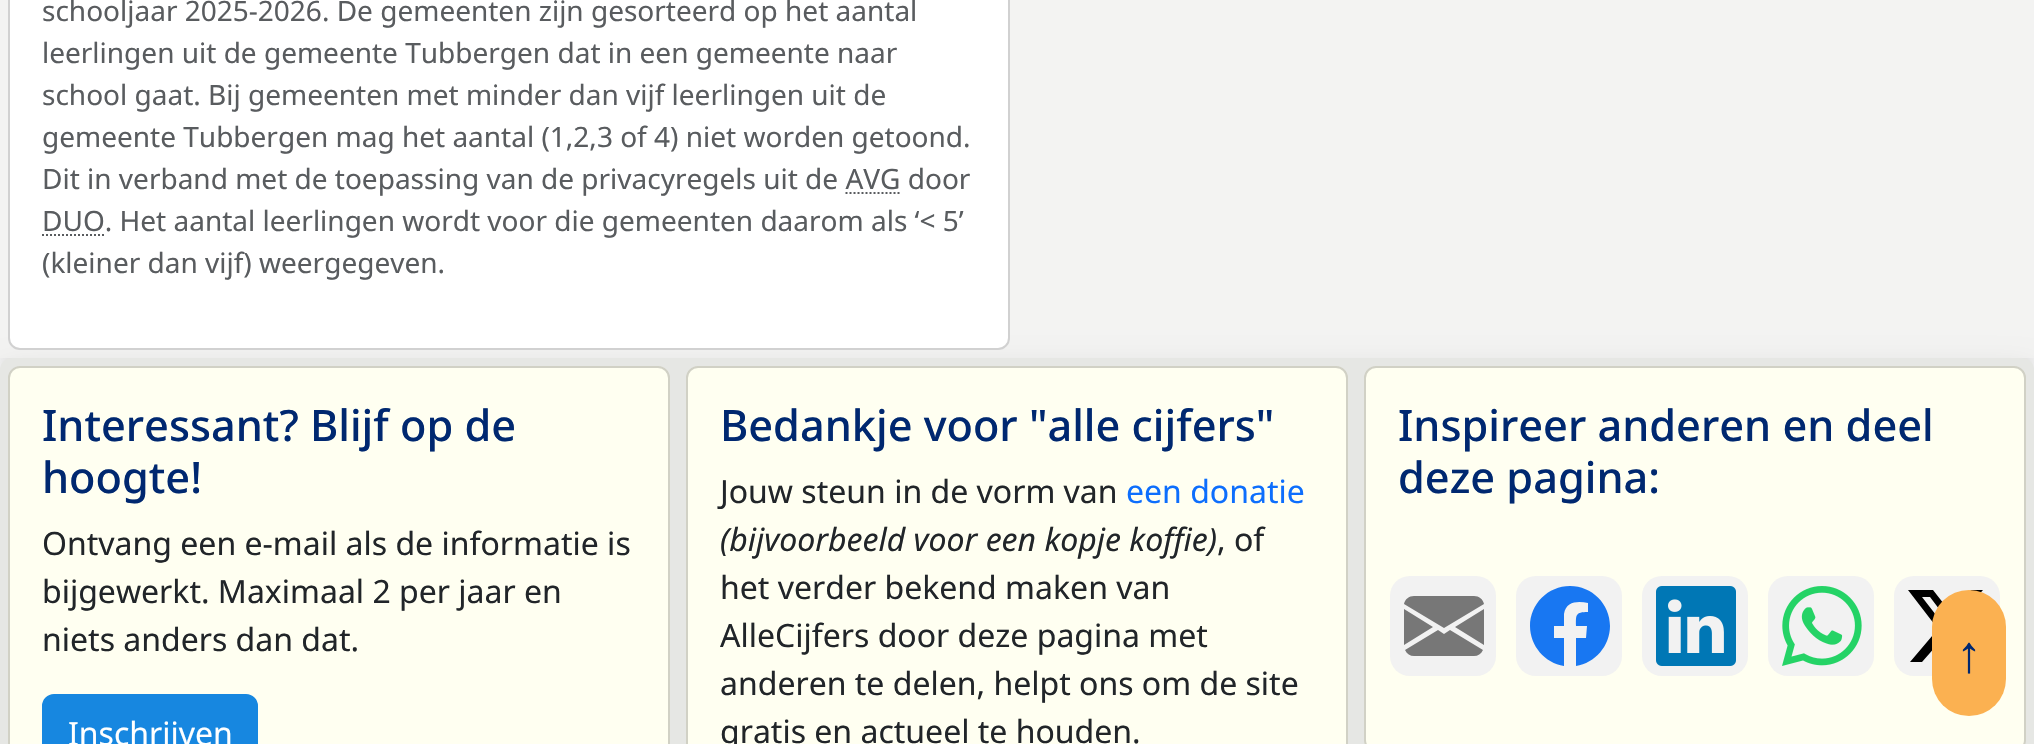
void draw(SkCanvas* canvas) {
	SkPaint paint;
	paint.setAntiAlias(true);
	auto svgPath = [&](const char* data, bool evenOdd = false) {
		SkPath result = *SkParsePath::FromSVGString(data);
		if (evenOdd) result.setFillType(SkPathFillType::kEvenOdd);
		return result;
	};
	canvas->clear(0xffffffff);
	paint.setColor(0x26000000);
	paint.setMaskFilter(SkMaskFilter::MakeBlur(kNormal_SkBlurStyle, 16));
	canvas->drawRoundRect(SkRect::MakeXYWH(0, -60, 2034, 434), 12, 12, paint);
	paint.setMaskFilter(nullptr);
	paint.setColor(0xfff3f3f2);
	canvas->drawRect(SkRect::MakeXYWH(0, 0, 2034, 358), paint);
	paint.setColor(0x26000000);
	paint.setMaskFilter(SkMaskFilter::MakeBlur(kNormal_SkBlurStyle, 16));
	canvas->drawRoundRect(SkRect::MakeXYWH(0, 374, 2034, 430), 12, 12, paint);
	paint.setMaskFilter(nullptr);
	paint.setColor(0xffffffff);
	canvas->drawRoundRect(SkRect::MakeXYWH(8, -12, 1002, 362), 12, 12, paint);
	paint.setStroke(true);
	paint.setStrokeWidth(2);
	paint.setColor(0x2e000000);
	canvas->drawRoundRect(SkRect::MakeXYWH(9, -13, 1000, 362), 11, 11, paint);
	SkFont f1(fontMgr->matchFamilyStyle("Noto Sans", SkFontStyle::Normal()), 28);
	f1.setSubpixel(true);
	paint.setStroke(false);
	paint.setColor(0xff595c5f);
	canvas->drawString("schooljaar 2025-2026. De gemeenten zijn gesorteerd op het aantal", 42, 21, f1, paint);
	canvas->drawString("leerlingen uit de gemeente Tubbergen dat in een gemeente naar", 42, 63, f1, paint);
	canvas->drawString("school gaat. Bij gemeenten met minder dan vijf leerlingen uit de", 42, 105, f1, paint);
	canvas->drawString("gemeente Tubbergen mag het aantal (1,2,3 of 4) niet worden getoond.", 42, 147, f1, paint);
	canvas->drawString("Dit in verband met de toepassing van de privacyregels uit de AVG door", 42, 189, f1, paint);
	paint.setStroke(true);
	paint.setPathEffect(SkDashPathEffect::Make({{2, 2}}, 0));
	canvas->drawPath(svgPath("M845.5 193H900.5"), paint);
	paint.setPathEffect(nullptr);
	paint.setPathEffect(SkDashPathEffect::Make({{2, 2}}, 0));
	canvas->drawPath(svgPath("M42 235H105"), paint);
	paint.setPathEffect(nullptr);
	paint.setStroke(false);
	canvas->drawString("DUO. Het aantal leerlingen wordt voor die gemeenten daarom als ‘< 5’", 42, 231, f1, paint);
	canvas->drawString("(kleiner dan vijf) weergegeven.", 42, 273, f1, paint);
	paint.setColor(0xffe6e7e4);
	canvas->drawRoundRect(SkRect::MakeXYWH(0, 358, 2034, 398), 12, 12, paint);
	paint.setColor(0xfffffff1);
	canvas->drawRoundRect(SkRect::MakeXYWH(8, 366, 662, 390), 12, 12, paint);
	paint.setStroke(true);
	paint.setColor(0x2e000000);
	canvas->drawRoundRect(SkRect::MakeXYWH(9, 367, 660, 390), 11, 11, paint);
	SkFont f2(fontMgr->matchFamilyStyle("Noto Sans", SkFontStyle(500, SkFontStyle::kNormal_Width, SkFontStyle::kUpright_Slant)), 43.25);
	f2.setSubpixel(true);
	paint.setStroke(false);
	paint.setColor(0xff002870);
	canvas->drawString("Interessant? Blijf op de", 42, 441, f2, paint);
	canvas->drawString("hoogte!", 42, 493, f2, paint);
	SkFont f3(fontMgr->matchFamilyStyle("Noto Sans", SkFontStyle::Normal()), 32);
	f3.setSubpixel(true);
	paint.setColor(0xff212529);
	canvas->drawString("Ontvang een e-mail als de informatie is", 42, 555, f3, paint);
	canvas->drawString("bijgewerkt. Maximaal 2 per jaar en", 42, 603, f3, paint);
	canvas->drawString("niets anders dan dat.", 42, 651, f3, paint);
	paint.setColor(0xff1787e0);
	canvas->drawRoundRect(SkRect::MakeXYWH(43, 695, 214, 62), 11, 11, paint);
	paint.setStroke(true);
	canvas->drawRoundRect(SkRect::MakeXYWH(43, 695, 214, 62), 11, 11, paint);
	paint.setStroke(false);
	paint.setColor(0xffffffff);
	canvas->drawString("Inschrijven", 68, 745, f3, paint);
	paint.setColor(0xfffffff1);
	canvas->drawRoundRect(SkRect::MakeXYWH(686, 366, 662, 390), 12, 12, paint);
	paint.setStroke(true);
	paint.setColor(0x2e000000);
	canvas->drawRoundRect(SkRect::MakeXYWH(687, 367, 660, 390), 11, 11, paint);
	paint.setStroke(false);
	paint.setColor(0xff002870);
	canvas->drawString("Bedankje voor \"alle cijfers\"", 720, 441, f2, paint);
	paint.setColor(0xff212529);
	canvas->drawString("Jouw steun in de vorm van", 720, 503, f3, paint);
	paint.setColor(0xff0d6efd);
	canvas->drawString("een donatie", 1126, 503, f3, paint);
	SkFont f4(fontMgr->matchFamilyStyle("Noto Sans", SkFontStyle::Italic()), 32);
	f4.setSubpixel(true);
	paint.setColor(0xff212529);
	canvas->drawString("(bijvoorbeeld voor een kopje koffie)", 720, 551, f4, paint);
	canvas->drawString(", of", 1217, 551, f3, paint);
	canvas->drawString("het verder bekend maken van", 720, 599, f3, paint);
	canvas->drawString("AlleCijfers door deze pagina met", 720, 647, f3, paint);
	canvas->drawString("anderen te delen, helpt ons om de site", 720, 695, f3, paint);
	canvas->drawString("gratis en actueel te houden.", 720, 743, f3, paint);
	paint.setColor(0xfffffff1);
	canvas->drawRoundRect(SkRect::MakeXYWH(1364, 366, 662, 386), 12, 12, paint);
	paint.setStroke(true);
	paint.setColor(0x2e000000);
	canvas->drawRoundRect(SkRect::MakeXYWH(1365, 367, 660, 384), 11, 11, paint);
	paint.setStroke(false);
	paint.setColor(0xff002870);
	canvas->drawString("Inspireer anderen en deel", 1398, 441, f2, paint);
	canvas->drawString("deze pagina:", 1398, 493, f2, paint);
	paint.setColor(0xfff2f2f2);
	canvas->drawRoundRect(SkRect::MakeXYWH(1390, 576, 106, 100), 20, 20, paint);
	paint.setColor(0xff777777);
	canvas->drawPath(svgPath("M1404 604C1405 599 1409 596 1414 596H1474C1479 596 1483 599 1484 604L1444 628ZM1404 609V645L1433 627ZM1438 630L1405 650C1407 654 1410 656 1414 656H1474C1478 656 1481 654 1483 650L1450 630L1444 634ZM1455 627L1484 645V609Z"), paint);
	paint.setColor(0xfff2f2f2);
	canvas->drawRoundRect(SkRect::MakeXYWH(1516, 576, 106, 100), 20, 20, paint);
	paint.setColor(0xff1877f2);
	canvas->drawPath(svgPath("M1610 626C1610 604 1592 586 1570 586C1548 586 1530 604 1530 626C1530 646 1545 663 1564 666V638H1554V626H1564V614C1566 601 1578 601 1588 603V612C1575 612 1576 615 1576 626H1587L1586 638H1576V666C1595 663 1610 646 1610 626"), paint);
	paint.setColor(0xfff2f2f2);
	canvas->drawRoundRect(SkRect::MakeXYWH(1642, 576, 106, 100), 20, 20, paint);
	canvas->drawImageRect(SkImages::DeferredFromEncodedData(SkData::MakeFromFileName("img1.png")), SkRect::MakeXYWH(1656, 586, 80, 80), SkSamplingOptions());
	canvas->drawRoundRect(SkRect::MakeXYWH(1768, 576, 106, 100), 20, 20, paint);
	canvas->drawImageRect(SkImages::DeferredFromEncodedData(SkData::MakeFromFileName("img2.png")), SkRect::MakeXYWH(1782, 586, 80, 80), SkSamplingOptions());
	canvas->drawRoundRect(SkRect::MakeXYWH(1894, 576, 106, 100), 20, 20, paint);
	paint.setColor(0xff000000);
	canvas->drawPath(svgPath("M1971 590H1983L1956 620L1988 662H1963L1944 637L1922 662H1910L1938 629L1908 590H1933L1951 613ZM1967 655H1974L1930 597H1922Z"), paint);
	paint.setColor(0xfffbb151);
	canvas->drawRoundRect(SkRect::MakeXYWH(1932, 590, 74, 126), 37, 37, paint);
	SkFont f5(fontMgr->matchFamilyStyle("Liberation Sans", SkFontStyle::Bold()), 52);
	f5.setSubpixel(true);
	paint.setColor(0xff002870);
	canvas->drawString("↑", 1956, 672, f5, paint);
}
